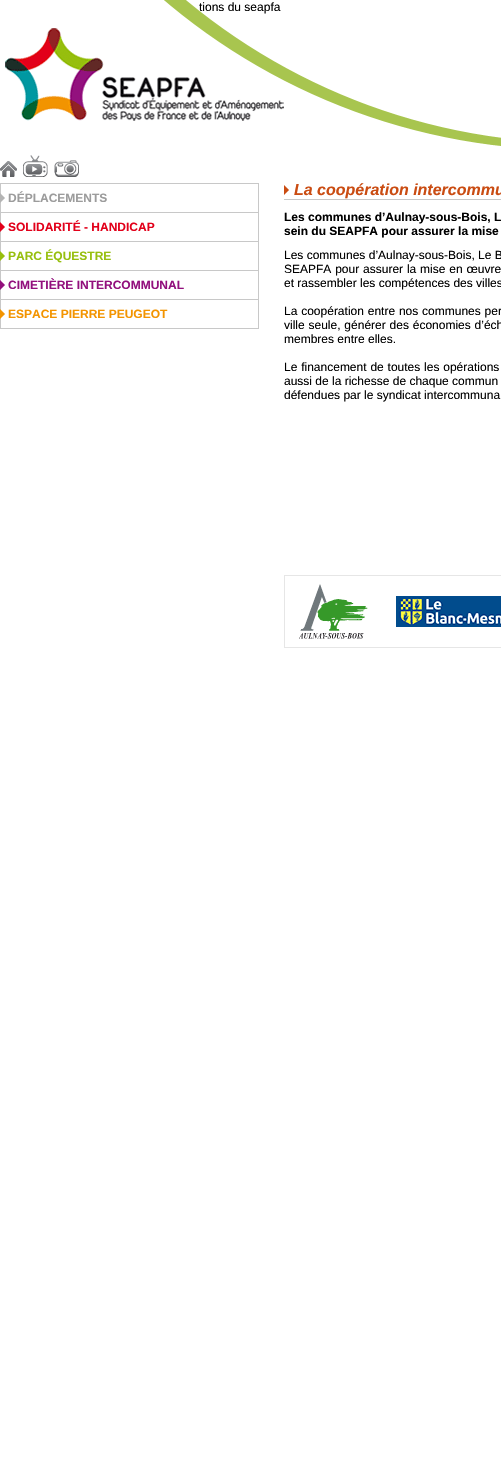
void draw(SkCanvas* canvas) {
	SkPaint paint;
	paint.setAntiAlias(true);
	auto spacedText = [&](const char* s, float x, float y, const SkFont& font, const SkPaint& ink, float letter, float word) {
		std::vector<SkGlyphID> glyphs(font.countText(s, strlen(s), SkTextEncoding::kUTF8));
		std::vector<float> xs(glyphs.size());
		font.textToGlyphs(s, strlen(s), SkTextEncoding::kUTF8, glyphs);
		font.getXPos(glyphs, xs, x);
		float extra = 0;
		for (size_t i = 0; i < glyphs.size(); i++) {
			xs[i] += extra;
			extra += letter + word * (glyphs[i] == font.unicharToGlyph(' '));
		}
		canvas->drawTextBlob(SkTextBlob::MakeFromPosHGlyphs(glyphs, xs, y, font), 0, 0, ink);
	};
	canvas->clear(0xffffffff);
	SkFont f1(fontMgr->matchFamilyStyle("Liberation Sans", SkFontStyle::Normal()), 12);
	f1.setSubpixel(true);
	paint.setColor(0xff000000);
	canvas->drawString("tions du seapfa", 199, 11, f1, paint);
	canvas->drawImageRect(SkImages::DeferredFromEncodedData(SkData::MakeFromFileName("img1.png")), SkRect::MakeXYWH(164, 0, 337, 146), SkSamplingOptions());
	canvas->drawImageRect(SkImages::DeferredFromEncodedData(SkData::MakeFromFileName("img2.png")), SkRect::MakeXYWH(5, 28, 279, 93), SkSamplingOptions());
	canvas->drawImageRect(SkImages::DeferredFromEncodedData(SkData::MakeFromFileName("img3.png")), SkRect::MakeXYWH(0, 161, 17, 16), SkSamplingOptions());
	canvas->drawImageRect(SkImages::DeferredFromEncodedData(SkData::MakeFromFileName("img4.png")), SkRect::MakeXYWH(23, 155, 25, 22), SkSamplingOptions());
	canvas->drawImageRect(SkImages::DeferredFromEncodedData(SkData::MakeFromFileName("img5.png")), SkRect::MakeXYWH(54, 160, 25, 17), SkSamplingOptions());
	paint.setColor(0xffc8c8c8);
	canvas->drawRect(SkRect::MakeXYWH(0, 183, 259, 1), paint);
	canvas->drawRect(SkRect::MakeXYWH(0, 183, 1, 146), paint);
	canvas->drawRect(SkRect::MakeXYWH(1, 212, 258, 1), paint);
	canvas->drawImageRect(SkImages::DeferredFromEncodedData(SkData::MakeFromFileName("img6.png")), SkRect::MakeXYWH(0, 193, 5, 10), SkSamplingOptions());
	canvas->drawRect(SkRect::MakeXYWH(258, 184, 1, 28), paint);
	SkFont f2(fontMgr->matchFamilyStyle("Liberation Sans", SkFontStyle::Bold()), 12);
	f2.setSubpixel(true);
	paint.setColor(0xff9c9c9c);
	canvas->drawString("DÉPLACEMENTS", 8, 202, f2, paint);
	paint.setColor(0xffc8c8c8);
	canvas->drawRect(SkRect::MakeXYWH(1, 241, 258, 1), paint);
	canvas->drawImageRect(SkImages::DeferredFromEncodedData(SkData::MakeFromFileName("img7.png")), SkRect::MakeXYWH(0, 222, 5, 10), SkSamplingOptions());
	canvas->drawRect(SkRect::MakeXYWH(258, 213, 1, 28), paint);
	paint.setColor(0xffe2001a);
	canvas->drawString("SOLIDARITÉ - HANDICAP", 8, 231, f2, paint);
	paint.setColor(0xffc8c8c8);
	canvas->drawRect(SkRect::MakeXYWH(1, 270, 258, 1), paint);
	canvas->drawImageRect(SkImages::DeferredFromEncodedData(SkData::MakeFromFileName("img8.png")), SkRect::MakeXYWH(0, 251, 5, 10), SkSamplingOptions());
	canvas->drawRect(SkRect::MakeXYWH(258, 242, 1, 28), paint);
	paint.setColor(0xff97bf0e);
	canvas->drawString("PARC ÉQUESTRE", 8, 260, f2, paint);
	paint.setColor(0xffc8c8c8);
	canvas->drawRect(SkRect::MakeXYWH(1, 299, 258, 1), paint);
	canvas->drawImageRect(SkImages::DeferredFromEncodedData(SkData::MakeFromFileName("img9.png")), SkRect::MakeXYWH(0, 280, 5, 10), SkSamplingOptions());
	canvas->drawRect(SkRect::MakeXYWH(258, 271, 1, 28), paint);
	paint.setColor(0xff92107d);
	canvas->drawString("CIMETIÈRE INTERCOMMUNAL", 8, 289, f2, paint);
	paint.setColor(0xffc8c8c8);
	canvas->drawRect(SkRect::MakeXYWH(1, 328, 258, 1), paint);
	canvas->drawImageRect(SkImages::DeferredFromEncodedData(SkData::MakeFromFileName("img10.png")), SkRect::MakeXYWH(0, 309, 5, 10), SkSamplingOptions());
	canvas->drawRect(SkRect::MakeXYWH(258, 300, 1, 28), paint);
	paint.setColor(0xfff39400);
	canvas->drawString("ESPACE PIERRE PEUGEOT", 8, 318, f2, paint);
	canvas->drawImageRect(SkImages::DeferredFromEncodedData(SkData::MakeFromFileName("img11.png")), SkRect::MakeXYWH(284, 185, 5, 10), SkSamplingOptions());
	paint.setColor(0xffc8c8c8);
	canvas->drawRect(SkRect::MakeXYWH(284, 199, 217, 1), paint);
	SkFont f3(fontMgr->matchFamilyStyle("Liberation Sans", SkFontStyle::BoldItalic()), 16);
	f3.setSubpixel(true);
	paint.setColor(0xffca4c12);
	canvas->drawString("La coopération intercommu", 294, 195, f3, paint);
	paint.setColor(0xff000000);
	canvas->drawString("Les communes d’Aulnay-sous-Bois, L", 284, 221, f2, paint);
	canvas->drawString("sein du SEAPFA pour assurer la mise", 284, 235, f2, paint);
	canvas->drawString("Les communes d’Aulnay-sous-Bois, Le B", 284, 259, f1, paint);
	spacedText("SEAPFA pour assurer la mise en œuvre", 284, 273, f1, paint, 0, 0.5);
	canvas->drawString("et rassembler les compétences des villes", 284, 287, f1, paint);
	spacedText("La coopération entre nos communes per", 284, 315, f1, paint, 0, 0.5);
	spacedText("ville seule, générer des économies d’éch", 284, 329, f1, paint, 0, 0.5);
	canvas->drawString("membres entre elles.", 284, 343, f1, paint);
	spacedText("Le financement de toutes les opérations", 284, 371, f1, paint, 0, 0.5);
	canvas->drawString("aussi de la richesse de chaque commun", 284, 385, f1, paint);
	canvas->drawString("défendues par le syndicat intercommuna", 284, 399, f1, paint);
	paint.setStroke(true);
	paint.setStrokeWidth(1);
	paint.setColor(0xffe6e6e6);
	canvas->drawRect(SkRect::MakeXYWH(284.5, 575.5, 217, 72), paint);
	canvas->drawImageRect(SkImages::DeferredFromEncodedData(SkData::MakeFromFileName("img12.png")), SkRect::MakeXYWH(299, 584, 69, 55), SkSamplingOptions());
	canvas->drawImageRect(SkImages::DeferredFromEncodedData(SkData::MakeFromFileName("img13.png")), SkRect::MakeXYWH(396, 596, 105, 31), SkSamplingOptions());
}
